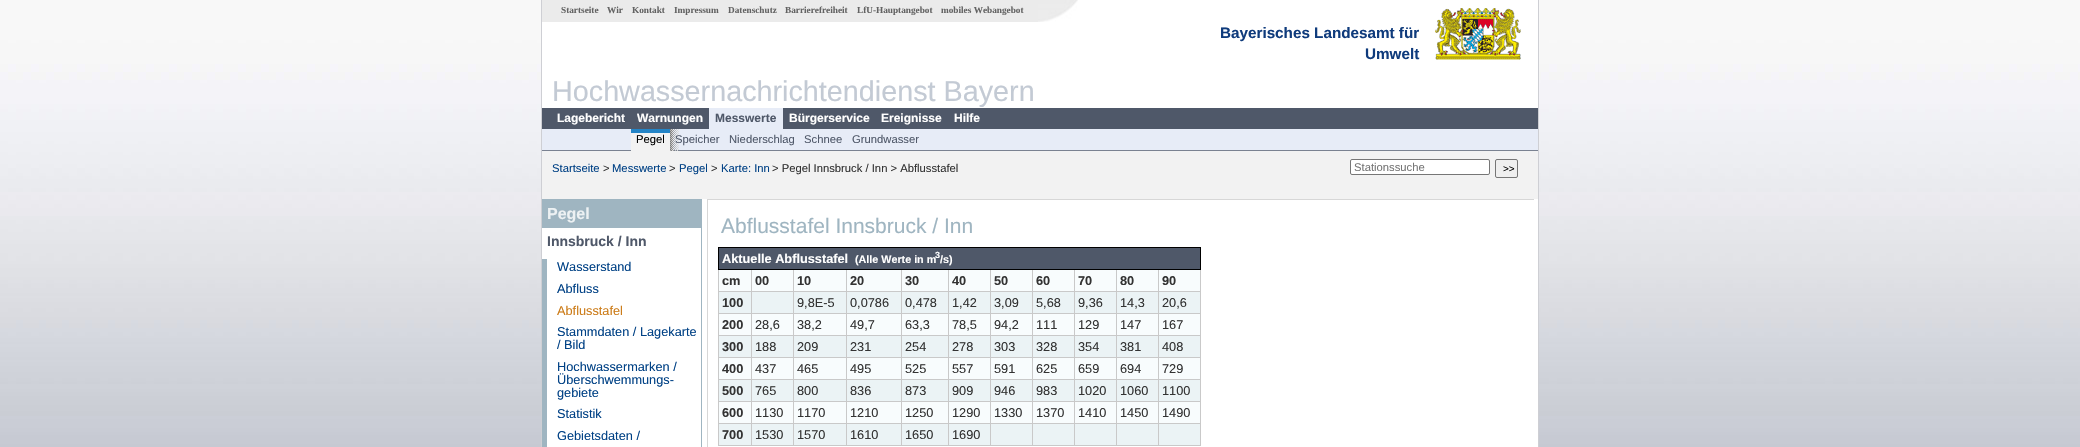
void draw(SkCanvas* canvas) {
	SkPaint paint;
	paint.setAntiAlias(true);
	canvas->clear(0xffffffff);
	canvas->drawImageRect(SkImages::DeferredFromEncodedData(SkData::MakeFromFileName("img1.png")), SkRect::MakeXYWH(0, 0, 2080, 447), SkSamplingOptions());
	paint.setColor(0xffffffff);
	canvas->drawRect(SkRect::MakeXYWH(542, 0, 996, 447), paint);
	paint.setColor(0xffcecfd4);
	canvas->drawRect(SkRect::MakeXYWH(1538, 0, 1, 447), paint);
	canvas->drawRect(SkRect::MakeXYWH(541, 0, 1, 447), paint);
	canvas->drawImageRect(SkImages::DeferredFromEncodedData(SkData::MakeFromFileName("img2.png")), SkRect::MakeXYWH(1435, 8, 86, 52), SkSamplingOptions());
	paint.setColor(0xffebebeb);
	canvas->drawRect(SkRect::MakeXYWH(542, 0, 496, 22), paint);
	canvas->drawImageRect(SkImages::DeferredFromEncodedData(SkData::MakeFromFileName("img3.png")), SkRect::MakeXYWH(1038, 0, 40, 22), SkSamplingOptions());
	SkFont f1(fontMgr->matchFamilyStyle("Liberation Serif", SkFontStyle::Bold()), 9.25);
	f1.setSubpixel(true);
	paint.setColor(0xff636363);
	canvas->drawString("Startseite", 561, 13, f1, paint);
	canvas->drawString("Wir", 607, 13, f1, paint);
	canvas->drawString("Kontakt", 632, 13, f1, paint);
	canvas->drawString("Impressum", 674, 13, f1, paint);
	canvas->drawString("Datenschutz", 728, 13, f1, paint);
	canvas->drawString("Barrierefreiheit", 785, 13, f1, paint);
	canvas->drawString("LfU-Hauptangebot", 857, 13, f1, paint);
	canvas->drawString("mobiles Webangebot", 941, 13, f1, paint);
	SkFont f2(fontMgr->matchFamilyStyle("Liberation Sans", SkFontStyle::Bold()), 15.25);
	f2.setSubpixel(true);
	paint.setColor(0xff0f3b7c);
	canvas->drawString("Bayerisches Landesamt für", 1220, 38, f2, paint);
	canvas->drawString("Umwelt", 1365, 59, f2, paint);
	SkFont f3(fontMgr->matchFamilyStyle("Liberation Sans", SkFontStyle::Normal()), 28.75);
	f3.setSubpixel(true);
	paint.setColor(0xffc3cad4);
	canvas->drawString("Hochwassernachrichtendienst Bayern", 552, 101, f3, paint);
	paint.setColor(0xff4f5869);
	canvas->drawRect(SkRect::MakeXYWH(542, 108, 996, 21), paint);
	SkFont f4(fontMgr->matchFamilyStyle("Liberation Sans", SkFontStyle::Bold()), 12);
	f4.setSubpixel(true);
	paint.setColor(0xffffffff);
	canvas->drawString("Lagebericht", 557, 122, f4, paint);
	canvas->drawString("Warnungen", 637, 122, f4, paint);
	paint.setColor(0xffe7ecf7);
	canvas->drawRect(SkRect::MakeXYWH(709, 108, 74, 21), paint);
	paint.setColor(0xff4f5869);
	canvas->drawString("Messwerte", 715, 122, f4, paint);
	paint.setColor(0xffffffff);
	canvas->drawString("Bürgerservice", 789, 122, f4, paint);
	canvas->drawString("Ereignisse", 881, 122, f4, paint);
	canvas->drawString("Hilfe", 954, 122, f4, paint);
	paint.setColor(0xffe7ecf7);
	canvas->drawRect(SkRect::MakeXYWH(542, 129, 996, 21), paint);
	paint.setColor(0xff7a8291);
	canvas->drawRect(SkRect::MakeXYWH(542, 150, 996, 1), paint);
	paint.setColor(0xfff2f2f2);
	canvas->drawRect(SkRect::MakeXYWH(631, 133, 39, 18), paint);
	paint.setColor(0xff2484c6);
	canvas->drawRect(SkRect::MakeXYWH(631, 129, 39, 4), paint);
	SkFont f5(fontMgr->matchFamilyStyle("Liberation Sans", SkFontStyle::Normal()), 11.25);
	f5.setSubpixel(true);
	paint.setColor(0xff000000);
	canvas->drawString("Pegel", 636, 143, f5, paint);
	canvas->drawImageRect(SkImages::DeferredFromEncodedData(SkData::MakeFromFileName("img4.png")), SkRect::MakeXYWH(670, 129, 9, 22), SkSamplingOptions());
	paint.setColor(0xff4f5869);
	canvas->drawString("Speicher", 675, 143, f5, paint);
	canvas->drawString("Niederschlag", 729, 143, f5, paint);
	canvas->drawString("Schnee", 804, 143, f5, paint);
	canvas->drawString("Grundwasser", 852, 143, f5, paint);
	paint.setColor(0xfff2f2f2);
	canvas->drawRect(SkRect::MakeXYWH(542, 151, 996, 48), paint);
	paint.setColor(0xff004185);
	canvas->drawString("Startseite", 552, 172, f5, paint);
	paint.setColor(0xff333333);
	canvas->drawString(">", 603, 172, f5, paint);
	paint.setColor(0xff004185);
	canvas->drawString("Messwerte", 612, 172, f5, paint);
	paint.setColor(0xff333333);
	canvas->drawString(">", 669, 172, f5, paint);
	paint.setColor(0xff004185);
	canvas->drawString("Pegel", 679, 172, f5, paint);
	paint.setColor(0xff333333);
	canvas->drawString(">", 711, 172, f5, paint);
	paint.setColor(0xff004185);
	canvas->drawString("Karte: Inn", 721, 172, f5, paint);
	paint.setColor(0xff333333);
	canvas->drawString("> Pegel Innsbruck / Inn > Abflusstafel", 772, 172, f5, paint);
	paint.setColor(0xffffffff);
	canvas->drawRoundRect(SkRect::MakeXYWH(1350.5, 159.5, 139, 15), 1.5, 1.5, paint);
	paint.setStroke(true);
	paint.setStrokeWidth(1);
	paint.setColor(0xff767676);
	canvas->drawRoundRect(SkRect::MakeXYWH(1350.5, 159.5, 139, 15), 1.5, 1.5, paint);
	paint.setStroke(false);
	paint.setColor(0xff757575);
	canvas->drawString("Stationssuche", 1354, 171, f5, paint);
	paint.setColor(0xffefefef);
	canvas->drawRoundRect(SkRect::MakeXYWH(1495.5, 159.5, 22, 18), 1.5, 1.5, paint);
	paint.setStroke(true);
	paint.setColor(0xff767676);
	canvas->drawRoundRect(SkRect::MakeXYWH(1495.5, 159.5, 22, 18), 1.5, 1.5, paint);
	SkFont f6(fontMgr->matchFamilyStyle("Liberation Sans", SkFontStyle::Normal()), 10);
	f6.setSubpixel(true);
	paint.setStroke(false);
	paint.setColor(0xff000000);
	canvas->drawString(">>", 1503, 172, f6, paint);
	paint.setColor(0xff9fb5c1);
	canvas->drawRect(SkRect::MakeXYWH(542, 199, 160, 1), paint);
	canvas->drawRect(SkRect::MakeXYWH(701, 199, 1, 248), paint);
	canvas->drawRect(SkRect::MakeXYWH(542, 200, 159, 28), paint);
	SkFont f7(fontMgr->matchFamilyStyle("Liberation Sans", SkFontStyle::Bold()), 16);
	f7.setSubpixel(true);
	paint.setColor(0xffedf1f3);
	canvas->drawString("Pegel", 547, 219, f7, paint);
	SkFont f8(fontMgr->matchFamilyStyle("Liberation Sans", SkFontStyle::Bold()), 14);
	f8.setSubpixel(true);
	paint.setColor(0xff4f5869);
	canvas->drawString("Innsbruck / Inn", 547, 246, f8, paint);
	paint.setColor(0xff9fb5c1);
	canvas->drawRect(SkRect::MakeXYWH(542, 259, 5, 188), paint);
	SkFont f9(fontMgr->matchFamilyStyle("Liberation Sans", SkFontStyle::Normal()), 12.75);
	f9.setSubpixel(true);
	paint.setColor(0xff004185);
	canvas->drawString("Wasserstand", 557, 271, f9, paint);
	canvas->drawString("Abfluss", 557, 293, f9, paint);
	paint.setColor(0xffcc7b17);
	canvas->drawString("Abflusstafel", 557, 315, f9, paint);
	paint.setColor(0xff004185);
	canvas->drawString("Stammdaten / Lagekarte", 557, 336, f9, paint);
	canvas->drawString("/ Bild", 557, 349, f9, paint);
	canvas->drawString("Hochwassermarken /", 557, 371, f9, paint);
	canvas->drawString("Überschwemmungs-", 557, 384, f9, paint);
	canvas->drawString("gebiete", 557, 397, f9, paint);
	canvas->drawString("Statistik", 557, 418, f9, paint);
	canvas->drawString("Gebietsdaten /", 557, 440, f9, paint);
	paint.setColor(0xffd7d7d7);
	canvas->drawRect(SkRect::MakeXYWH(707, 199, 827, 1), paint);
	canvas->drawRect(SkRect::MakeXYWH(707, 199, 1, 248), paint);
	SkFont f10(fontMgr->matchFamilyStyle("Liberation Sans", SkFontStyle::Normal()), 21);
	f10.setSubpixel(true);
	paint.setColor(0xff9fb5c1);
	canvas->drawString("Abflusstafel Innsbruck / Inn", 721, 233, f10, paint);
	paint.setColor(0xff4f5869);
	canvas->drawRect(SkRect::MakeXYWH(719, 248, 481, 21), paint);
	paint.setColor(0xff000000);
	canvas->drawRect(SkRect::MakeXYWH(718, 247, 483, 1), paint);
	paint.setColor(0xffc9c9c9);
	canvas->drawRect(SkRect::MakeXYWH(1158, 291, 43, 1), paint);
	canvas->drawRect(SkRect::MakeXYWH(1158, 313, 43, 1), paint);
	canvas->drawRect(SkRect::MakeXYWH(1158, 335, 43, 1), paint);
	canvas->drawRect(SkRect::MakeXYWH(1158, 357, 43, 1), paint);
	canvas->drawRect(SkRect::MakeXYWH(1158, 379, 43, 1), paint);
	canvas->drawRect(SkRect::MakeXYWH(1158, 401, 43, 1), paint);
	canvas->drawRect(SkRect::MakeXYWH(1158, 423, 43, 1), paint);
	canvas->drawRect(SkRect::MakeXYWH(1200, 423, 1, 23), paint);
	canvas->drawRect(SkRect::MakeXYWH(1200, 401, 1, 23), paint);
	canvas->drawRect(SkRect::MakeXYWH(1200, 379, 1, 23), paint);
	canvas->drawRect(SkRect::MakeXYWH(1200, 357, 1, 23), paint);
	canvas->drawRect(SkRect::MakeXYWH(1200, 335, 1, 23), paint);
	canvas->drawRect(SkRect::MakeXYWH(1200, 313, 1, 23), paint);
	canvas->drawRect(SkRect::MakeXYWH(1200, 269, 1, 45), paint);
	paint.setColor(0xff000000);
	canvas->drawRect(SkRect::MakeXYWH(1200, 247, 1, 23), paint);
	paint.setColor(0xfff8fcfd);
	canvas->drawRect(SkRect::MakeXYWH(719, 270, 481, 21), paint);
	paint.setColor(0xffebf3f5);
	canvas->drawRect(SkRect::MakeXYWH(719, 292, 481, 21), paint);
	paint.setColor(0xfff8fcfd);
	canvas->drawRect(SkRect::MakeXYWH(719, 314, 481, 21), paint);
	paint.setColor(0xffebf3f5);
	canvas->drawRect(SkRect::MakeXYWH(719, 336, 481, 21), paint);
	paint.setColor(0xfff8fcfd);
	canvas->drawRect(SkRect::MakeXYWH(719, 358, 481, 21), paint);
	paint.setColor(0xffebf3f5);
	canvas->drawRect(SkRect::MakeXYWH(719, 380, 481, 21), paint);
	paint.setColor(0xfff8fcfd);
	canvas->drawRect(SkRect::MakeXYWH(719, 402, 481, 21), paint);
	paint.setColor(0xffebf3f5);
	canvas->drawRect(SkRect::MakeXYWH(719, 424, 481, 21), paint);
	paint.setColor(0xffc9c9c9);
	canvas->drawRect(SkRect::MakeXYWH(1158, 445, 43, 1), paint);
	canvas->drawRect(SkRect::MakeXYWH(1158, 423, 1, 23), paint);
	canvas->drawRect(SkRect::MakeXYWH(1116, 423, 43, 1), paint);
	canvas->drawRect(SkRect::MakeXYWH(1158, 401, 1, 23), paint);
	canvas->drawRect(SkRect::MakeXYWH(1116, 401, 43, 1), paint);
	canvas->drawRect(SkRect::MakeXYWH(1158, 379, 1, 23), paint);
	canvas->drawRect(SkRect::MakeXYWH(1116, 379, 43, 1), paint);
	canvas->drawRect(SkRect::MakeXYWH(1158, 357, 1, 23), paint);
	canvas->drawRect(SkRect::MakeXYWH(1116, 357, 43, 1), paint);
	canvas->drawRect(SkRect::MakeXYWH(1158, 335, 1, 23), paint);
	canvas->drawRect(SkRect::MakeXYWH(1116, 335, 43, 1), paint);
	canvas->drawRect(SkRect::MakeXYWH(1158, 313, 1, 23), paint);
	canvas->drawRect(SkRect::MakeXYWH(1116, 313, 43, 1), paint);
	canvas->drawRect(SkRect::MakeXYWH(1158, 291, 1, 23), paint);
	canvas->drawRect(SkRect::MakeXYWH(1116, 291, 43, 1), paint);
	canvas->drawRect(SkRect::MakeXYWH(1116, 445, 43, 1), paint);
	canvas->drawRect(SkRect::MakeXYWH(1116, 423, 1, 23), paint);
	canvas->drawRect(SkRect::MakeXYWH(1074, 423, 43, 1), paint);
	canvas->drawRect(SkRect::MakeXYWH(1116, 401, 1, 23), paint);
	canvas->drawRect(SkRect::MakeXYWH(1074, 401, 43, 1), paint);
	canvas->drawRect(SkRect::MakeXYWH(1116, 379, 1, 23), paint);
	canvas->drawRect(SkRect::MakeXYWH(1074, 379, 43, 1), paint);
	canvas->drawRect(SkRect::MakeXYWH(1116, 357, 1, 23), paint);
	canvas->drawRect(SkRect::MakeXYWH(1074, 357, 43, 1), paint);
	canvas->drawRect(SkRect::MakeXYWH(1116, 335, 1, 23), paint);
	canvas->drawRect(SkRect::MakeXYWH(1074, 335, 43, 1), paint);
	canvas->drawRect(SkRect::MakeXYWH(1116, 313, 1, 23), paint);
	canvas->drawRect(SkRect::MakeXYWH(1074, 313, 43, 1), paint);
	canvas->drawRect(SkRect::MakeXYWH(1116, 291, 1, 23), paint);
	canvas->drawRect(SkRect::MakeXYWH(1074, 291, 43, 1), paint);
	canvas->drawRect(SkRect::MakeXYWH(1074, 445, 43, 1), paint);
	canvas->drawRect(SkRect::MakeXYWH(1074, 423, 1, 23), paint);
	canvas->drawRect(SkRect::MakeXYWH(1032, 423, 43, 1), paint);
	canvas->drawRect(SkRect::MakeXYWH(1074, 401, 1, 23), paint);
	canvas->drawRect(SkRect::MakeXYWH(1032, 401, 43, 1), paint);
	canvas->drawRect(SkRect::MakeXYWH(1074, 379, 1, 23), paint);
	canvas->drawRect(SkRect::MakeXYWH(1032, 379, 43, 1), paint);
	canvas->drawRect(SkRect::MakeXYWH(1074, 357, 1, 23), paint);
	canvas->drawRect(SkRect::MakeXYWH(1032, 357, 43, 1), paint);
	canvas->drawRect(SkRect::MakeXYWH(1074, 335, 1, 23), paint);
	canvas->drawRect(SkRect::MakeXYWH(1032, 335, 43, 1), paint);
	canvas->drawRect(SkRect::MakeXYWH(1074, 313, 1, 23), paint);
	canvas->drawRect(SkRect::MakeXYWH(1032, 313, 43, 1), paint);
	canvas->drawRect(SkRect::MakeXYWH(1074, 291, 1, 23), paint);
	canvas->drawRect(SkRect::MakeXYWH(1032, 291, 43, 1), paint);
	canvas->drawRect(SkRect::MakeXYWH(1032, 445, 43, 1), paint);
	canvas->drawRect(SkRect::MakeXYWH(1032, 423, 1, 23), paint);
	canvas->drawRect(SkRect::MakeXYWH(990, 423, 43, 1), paint);
	canvas->drawRect(SkRect::MakeXYWH(1032, 401, 1, 23), paint);
	canvas->drawRect(SkRect::MakeXYWH(990, 401, 43, 1), paint);
	canvas->drawRect(SkRect::MakeXYWH(1032, 379, 1, 23), paint);
	canvas->drawRect(SkRect::MakeXYWH(990, 379, 43, 1), paint);
	canvas->drawRect(SkRect::MakeXYWH(1032, 357, 1, 23), paint);
	canvas->drawRect(SkRect::MakeXYWH(990, 357, 43, 1), paint);
	canvas->drawRect(SkRect::MakeXYWH(1032, 335, 1, 23), paint);
	canvas->drawRect(SkRect::MakeXYWH(990, 335, 43, 1), paint);
	canvas->drawRect(SkRect::MakeXYWH(1032, 313, 1, 23), paint);
	canvas->drawRect(SkRect::MakeXYWH(990, 313, 43, 1), paint);
	canvas->drawRect(SkRect::MakeXYWH(1032, 291, 1, 23), paint);
	canvas->drawRect(SkRect::MakeXYWH(990, 291, 43, 1), paint);
	canvas->drawRect(SkRect::MakeXYWH(990, 445, 43, 1), paint);
	canvas->drawRect(SkRect::MakeXYWH(990, 423, 1, 23), paint);
	canvas->drawRect(SkRect::MakeXYWH(948, 423, 43, 1), paint);
	canvas->drawRect(SkRect::MakeXYWH(990, 401, 1, 23), paint);
	canvas->drawRect(SkRect::MakeXYWH(948, 401, 43, 1), paint);
	canvas->drawRect(SkRect::MakeXYWH(990, 379, 1, 23), paint);
	canvas->drawRect(SkRect::MakeXYWH(948, 379, 43, 1), paint);
	canvas->drawRect(SkRect::MakeXYWH(990, 357, 1, 23), paint);
	canvas->drawRect(SkRect::MakeXYWH(948, 357, 43, 1), paint);
	canvas->drawRect(SkRect::MakeXYWH(990, 335, 1, 23), paint);
	canvas->drawRect(SkRect::MakeXYWH(948, 335, 43, 1), paint);
	canvas->drawRect(SkRect::MakeXYWH(990, 313, 1, 23), paint);
	canvas->drawRect(SkRect::MakeXYWH(948, 313, 43, 1), paint);
	canvas->drawRect(SkRect::MakeXYWH(990, 291, 1, 23), paint);
	canvas->drawRect(SkRect::MakeXYWH(948, 291, 43, 1), paint);
	canvas->drawRect(SkRect::MakeXYWH(948, 445, 43, 1), paint);
	canvas->drawRect(SkRect::MakeXYWH(948, 423, 1, 23), paint);
	canvas->drawRect(SkRect::MakeXYWH(901, 423, 48, 1), paint);
	canvas->drawRect(SkRect::MakeXYWH(948, 401, 1, 23), paint);
	canvas->drawRect(SkRect::MakeXYWH(901, 401, 48, 1), paint);
	canvas->drawRect(SkRect::MakeXYWH(948, 379, 1, 23), paint);
	canvas->drawRect(SkRect::MakeXYWH(901, 379, 48, 1), paint);
	canvas->drawRect(SkRect::MakeXYWH(948, 357, 1, 23), paint);
	canvas->drawRect(SkRect::MakeXYWH(901, 357, 48, 1), paint);
	canvas->drawRect(SkRect::MakeXYWH(948, 335, 1, 23), paint);
	canvas->drawRect(SkRect::MakeXYWH(901, 335, 48, 1), paint);
	canvas->drawRect(SkRect::MakeXYWH(948, 313, 1, 23), paint);
	canvas->drawRect(SkRect::MakeXYWH(901, 313, 48, 1), paint);
	canvas->drawRect(SkRect::MakeXYWH(948, 291, 1, 23), paint);
	canvas->drawRect(SkRect::MakeXYWH(901, 291, 48, 1), paint);
	canvas->drawRect(SkRect::MakeXYWH(901, 445, 48, 1), paint);
	canvas->drawRect(SkRect::MakeXYWH(901, 423, 1, 23), paint);
	canvas->drawRect(SkRect::MakeXYWH(846, 423, 56, 1), paint);
	canvas->drawRect(SkRect::MakeXYWH(901, 401, 1, 23), paint);
	canvas->drawRect(SkRect::MakeXYWH(846, 401, 56, 1), paint);
	canvas->drawRect(SkRect::MakeXYWH(901, 379, 1, 23), paint);
	canvas->drawRect(SkRect::MakeXYWH(846, 379, 56, 1), paint);
	canvas->drawRect(SkRect::MakeXYWH(901, 357, 1, 23), paint);
	canvas->drawRect(SkRect::MakeXYWH(846, 357, 56, 1), paint);
	canvas->drawRect(SkRect::MakeXYWH(901, 335, 1, 23), paint);
	canvas->drawRect(SkRect::MakeXYWH(846, 335, 56, 1), paint);
	canvas->drawRect(SkRect::MakeXYWH(901, 313, 1, 23), paint);
	canvas->drawRect(SkRect::MakeXYWH(846, 313, 56, 1), paint);
	canvas->drawRect(SkRect::MakeXYWH(901, 291, 1, 23), paint);
	canvas->drawRect(SkRect::MakeXYWH(846, 291, 56, 1), paint);
	canvas->drawRect(SkRect::MakeXYWH(846, 445, 56, 1), paint);
	canvas->drawRect(SkRect::MakeXYWH(846, 423, 1, 23), paint);
	canvas->drawRect(SkRect::MakeXYWH(793, 423, 54, 1), paint);
	canvas->drawRect(SkRect::MakeXYWH(846, 401, 1, 23), paint);
	canvas->drawRect(SkRect::MakeXYWH(793, 401, 54, 1), paint);
	canvas->drawRect(SkRect::MakeXYWH(846, 379, 1, 23), paint);
	canvas->drawRect(SkRect::MakeXYWH(793, 379, 54, 1), paint);
	canvas->drawRect(SkRect::MakeXYWH(846, 357, 1, 23), paint);
	canvas->drawRect(SkRect::MakeXYWH(793, 357, 54, 1), paint);
	canvas->drawRect(SkRect::MakeXYWH(846, 335, 1, 23), paint);
	canvas->drawRect(SkRect::MakeXYWH(793, 335, 54, 1), paint);
	canvas->drawRect(SkRect::MakeXYWH(846, 313, 1, 23), paint);
	canvas->drawRect(SkRect::MakeXYWH(793, 313, 54, 1), paint);
	canvas->drawRect(SkRect::MakeXYWH(846, 291, 1, 23), paint);
	canvas->drawRect(SkRect::MakeXYWH(793, 291, 54, 1), paint);
	canvas->drawRect(SkRect::MakeXYWH(793, 445, 54, 1), paint);
	canvas->drawRect(SkRect::MakeXYWH(793, 423, 1, 23), paint);
	canvas->drawRect(SkRect::MakeXYWH(751, 423, 43, 1), paint);
	canvas->drawRect(SkRect::MakeXYWH(793, 401, 1, 23), paint);
	canvas->drawRect(SkRect::MakeXYWH(751, 401, 43, 1), paint);
	canvas->drawRect(SkRect::MakeXYWH(793, 379, 1, 23), paint);
	canvas->drawRect(SkRect::MakeXYWH(751, 379, 43, 1), paint);
	canvas->drawRect(SkRect::MakeXYWH(793, 357, 1, 23), paint);
	canvas->drawRect(SkRect::MakeXYWH(751, 357, 43, 1), paint);
	canvas->drawRect(SkRect::MakeXYWH(793, 335, 1, 23), paint);
	canvas->drawRect(SkRect::MakeXYWH(751, 335, 43, 1), paint);
	canvas->drawRect(SkRect::MakeXYWH(793, 313, 1, 23), paint);
	canvas->drawRect(SkRect::MakeXYWH(751, 313, 43, 1), paint);
	canvas->drawRect(SkRect::MakeXYWH(793, 291, 1, 23), paint);
	canvas->drawRect(SkRect::MakeXYWH(751, 291, 43, 1), paint);
	canvas->drawRect(SkRect::MakeXYWH(751, 445, 43, 1), paint);
	canvas->drawRect(SkRect::MakeXYWH(751, 423, 1, 23), paint);
	canvas->drawRect(SkRect::MakeXYWH(718, 423, 34, 1), paint);
	canvas->drawRect(SkRect::MakeXYWH(751, 401, 1, 23), paint);
	canvas->drawRect(SkRect::MakeXYWH(718, 401, 34, 1), paint);
	canvas->drawRect(SkRect::MakeXYWH(751, 379, 1, 23), paint);
	canvas->drawRect(SkRect::MakeXYWH(718, 379, 34, 1), paint);
	canvas->drawRect(SkRect::MakeXYWH(751, 357, 1, 23), paint);
	canvas->drawRect(SkRect::MakeXYWH(718, 357, 34, 1), paint);
	canvas->drawRect(SkRect::MakeXYWH(751, 335, 1, 23), paint);
	canvas->drawRect(SkRect::MakeXYWH(718, 335, 34, 1), paint);
	canvas->drawRect(SkRect::MakeXYWH(751, 313, 1, 23), paint);
	canvas->drawRect(SkRect::MakeXYWH(718, 313, 34, 1), paint);
	canvas->drawRect(SkRect::MakeXYWH(751, 291, 1, 23), paint);
	canvas->drawRect(SkRect::MakeXYWH(718, 291, 34, 1), paint);
	canvas->drawRect(SkRect::MakeXYWH(751, 269, 1, 23), paint);
	canvas->drawRect(SkRect::MakeXYWH(793, 269, 1, 23), paint);
	canvas->drawRect(SkRect::MakeXYWH(846, 269, 1, 23), paint);
	canvas->drawRect(SkRect::MakeXYWH(901, 269, 1, 23), paint);
	canvas->drawRect(SkRect::MakeXYWH(948, 269, 1, 23), paint);
	canvas->drawRect(SkRect::MakeXYWH(990, 269, 1, 23), paint);
	canvas->drawRect(SkRect::MakeXYWH(1032, 269, 1, 23), paint);
	canvas->drawRect(SkRect::MakeXYWH(1074, 269, 1, 23), paint);
	canvas->drawRect(SkRect::MakeXYWH(1116, 269, 1, 23), paint);
	canvas->drawRect(SkRect::MakeXYWH(1158, 269, 1, 23), paint);
	canvas->drawRect(SkRect::MakeXYWH(718, 445, 34, 1), paint);
	canvas->drawRect(SkRect::MakeXYWH(718, 423, 1, 23), paint);
	canvas->drawRect(SkRect::MakeXYWH(718, 401, 1, 23), paint);
	canvas->drawRect(SkRect::MakeXYWH(718, 379, 1, 23), paint);
	canvas->drawRect(SkRect::MakeXYWH(718, 357, 1, 23), paint);
	canvas->drawRect(SkRect::MakeXYWH(718, 335, 1, 23), paint);
	canvas->drawRect(SkRect::MakeXYWH(718, 313, 1, 23), paint);
	canvas->drawRect(SkRect::MakeXYWH(718, 269, 1, 45), paint);
	paint.setColor(0xff000000);
	canvas->drawRect(SkRect::MakeXYWH(718, 269, 483, 1), paint);
	canvas->drawRect(SkRect::MakeXYWH(718, 247, 1, 23), paint);
	SkFont f11(fontMgr->matchFamilyStyle("Liberation Sans", SkFontStyle::Bold()), 12.75);
	f11.setSubpixel(true);
	paint.setColor(0xffffffff);
	canvas->drawString("Aktuelle Abflusstafel", 722, 263, f11, paint);
	SkFont f12(fontMgr->matchFamilyStyle("Liberation Sans", SkFontStyle::Bold()), 10.75);
	f12.setSubpixel(true);
	canvas->drawString("(Alle Werte in m", 855, 263, f12, paint);
	SkFont f13(fontMgr->matchFamilyStyle("Liberation Sans", SkFontStyle::Bold()), 9);
	f13.setSubpixel(true);
	canvas->drawString("3", 935, 258, f13, paint);
	canvas->drawString("/s)", 940, 263, f12, paint);
	paint.setColor(0xff333333);
	canvas->drawString("cm", 722, 285, f11, paint);
	canvas->drawString("00", 755, 285, f11, paint);
	canvas->drawString("10", 797, 285, f11, paint);
	canvas->drawString("20", 850, 285, f11, paint);
	canvas->drawString("30", 905, 285, f11, paint);
	canvas->drawString("40", 952, 285, f11, paint);
	canvas->drawString("50", 994, 285, f11, paint);
	canvas->drawString("60", 1036, 285, f11, paint);
	canvas->drawString("70", 1078, 285, f11, paint);
	canvas->drawString("80", 1120, 285, f11, paint);
	canvas->drawString("90", 1162, 285, f11, paint);
	canvas->drawString("100", 722, 307, f11, paint);
	canvas->drawString("9,8E-5", 797, 307, f9, paint);
	canvas->drawString("0,0786", 850, 307, f9, paint);
	canvas->drawString("0,478", 905, 307, f9, paint);
	canvas->drawString("1,42", 952, 307, f9, paint);
	canvas->drawString("3,09", 994, 307, f9, paint);
	canvas->drawString("5,68", 1036, 307, f9, paint);
	canvas->drawString("9,36", 1078, 307, f9, paint);
	canvas->drawString("14,3", 1120, 307, f9, paint);
	canvas->drawString("20,6", 1162, 307, f9, paint);
	canvas->drawString("200", 722, 329, f11, paint);
	canvas->drawString("28,6", 755, 329, f9, paint);
	canvas->drawString("38,2", 797, 329, f9, paint);
	canvas->drawString("49,7", 850, 329, f9, paint);
	canvas->drawString("63,3", 905, 329, f9, paint);
	canvas->drawString("78,5", 952, 329, f9, paint);
	canvas->drawString("94,2", 994, 329, f9, paint);
	canvas->drawString("111", 1036, 329, f9, paint);
	canvas->drawString("129", 1078, 329, f9, paint);
	canvas->drawString("147", 1120, 329, f9, paint);
	canvas->drawString("167", 1162, 329, f9, paint);
	canvas->drawString("300", 722, 351, f11, paint);
	canvas->drawString("188", 755, 351, f9, paint);
	canvas->drawString("209", 797, 351, f9, paint);
	canvas->drawString("231", 850, 351, f9, paint);
	canvas->drawString("254", 905, 351, f9, paint);
	canvas->drawString("278", 952, 351, f9, paint);
	canvas->drawString("303", 994, 351, f9, paint);
	canvas->drawString("328", 1036, 351, f9, paint);
	canvas->drawString("354", 1078, 351, f9, paint);
	canvas->drawString("381", 1120, 351, f9, paint);
	canvas->drawString("408", 1162, 351, f9, paint);
	canvas->drawString("400", 722, 373, f11, paint);
	canvas->drawString("437", 755, 373, f9, paint);
	canvas->drawString("465", 797, 373, f9, paint);
	canvas->drawString("495", 850, 373, f9, paint);
	canvas->drawString("525", 905, 373, f9, paint);
	canvas->drawString("557", 952, 373, f9, paint);
	canvas->drawString("591", 994, 373, f9, paint);
	canvas->drawString("625", 1036, 373, f9, paint);
	canvas->drawString("659", 1078, 373, f9, paint);
	canvas->drawString("694", 1120, 373, f9, paint);
	canvas->drawString("729", 1162, 373, f9, paint);
	canvas->drawString("500", 722, 395, f11, paint);
	canvas->drawString("765", 755, 395, f9, paint);
	canvas->drawString("800", 797, 395, f9, paint);
	canvas->drawString("836", 850, 395, f9, paint);
	canvas->drawString("873", 905, 395, f9, paint);
	canvas->drawString("909", 952, 395, f9, paint);
	canvas->drawString("946", 994, 395, f9, paint);
	canvas->drawString("983", 1036, 395, f9, paint);
	canvas->drawString("1020", 1078, 395, f9, paint);
	canvas->drawString("1060", 1120, 395, f9, paint);
	canvas->drawString("1100", 1162, 395, f9, paint);
	canvas->drawString("600", 722, 417, f11, paint);
	canvas->drawString("1130", 755, 417, f9, paint);
	canvas->drawString("1170", 797, 417, f9, paint);
	canvas->drawString("1210", 850, 417, f9, paint);
	canvas->drawString("1250", 905, 417, f9, paint);
	canvas->drawString("1290", 952, 417, f9, paint);
	canvas->drawString("1330", 994, 417, f9, paint);
	canvas->drawString("1370", 1036, 417, f9, paint);
	canvas->drawString("1410", 1078, 417, f9, paint);
	canvas->drawString("1450", 1120, 417, f9, paint);
	canvas->drawString("1490", 1162, 417, f9, paint);
	canvas->drawString("700", 722, 439, f11, paint);
	canvas->drawString("1530", 755, 439, f9, paint);
	canvas->drawString("1570", 797, 439, f9, paint);
	canvas->drawString("1610", 850, 439, f9, paint);
	canvas->drawString("1650", 905, 439, f9, paint);
	canvas->drawString("1690", 952, 439, f9, paint);
}
